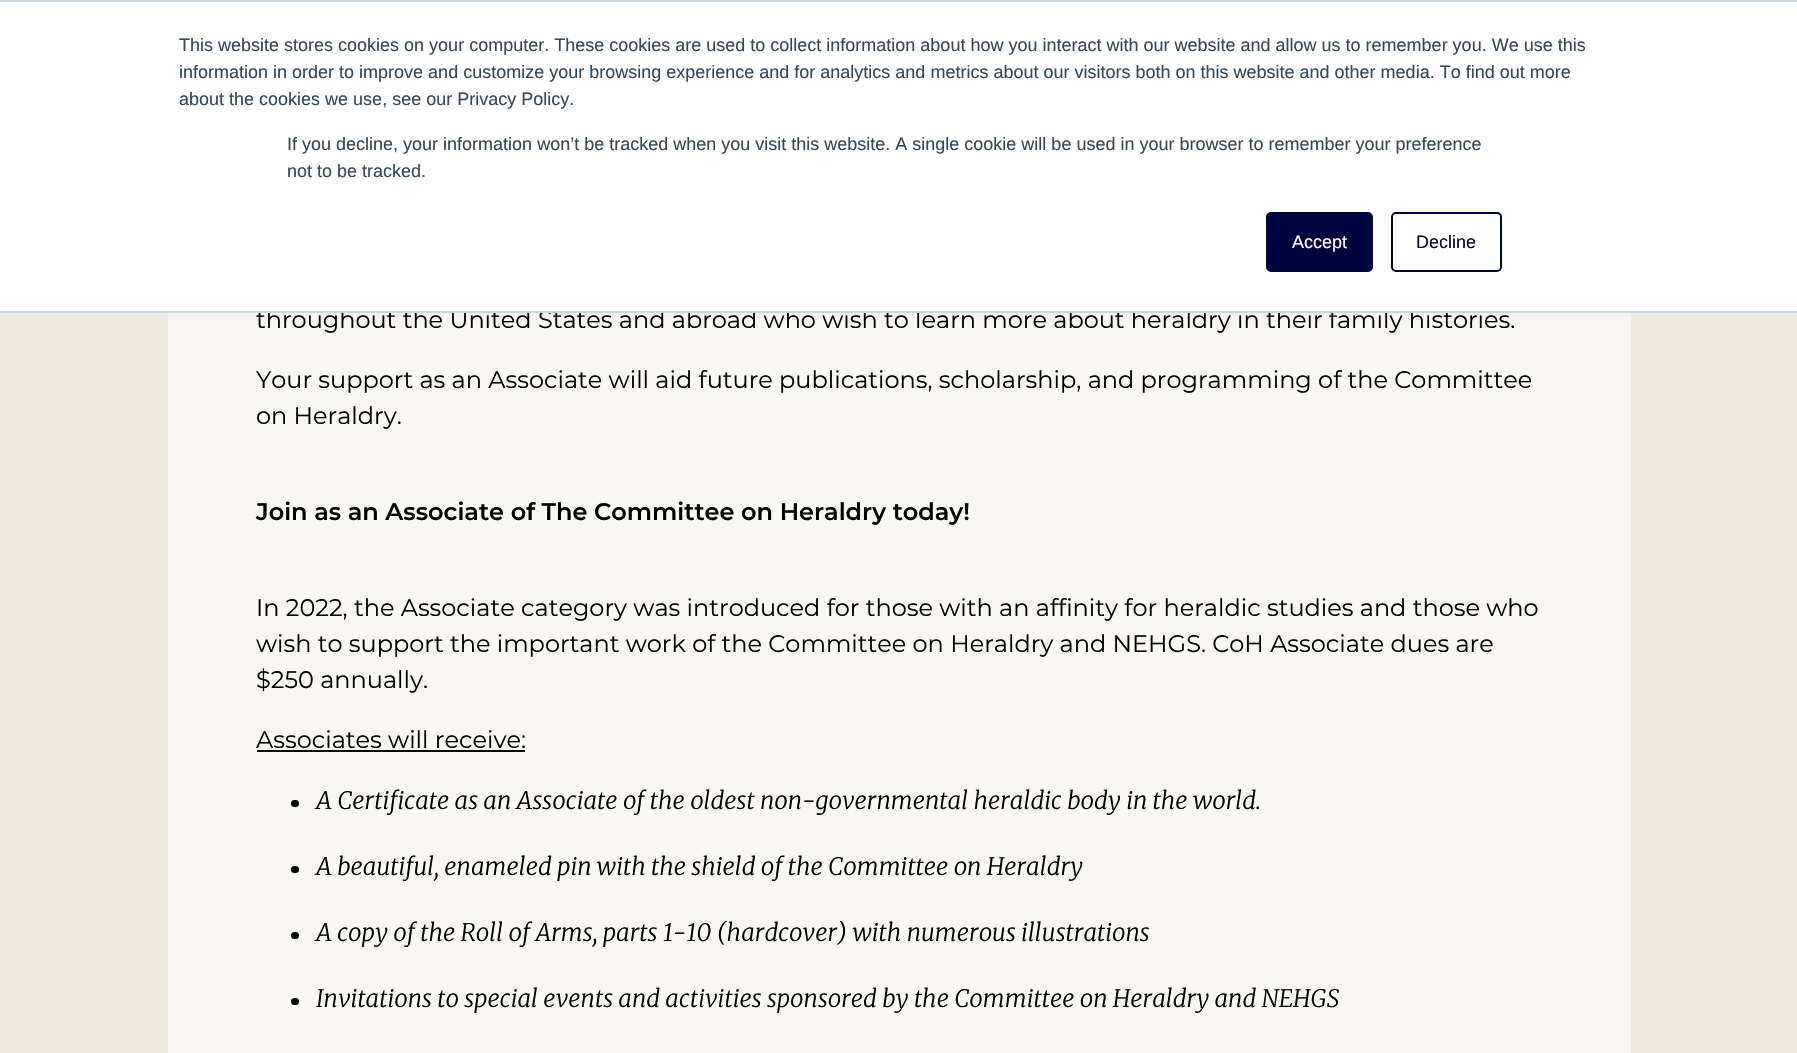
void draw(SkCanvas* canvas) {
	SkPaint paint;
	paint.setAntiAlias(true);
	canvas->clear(0xfff0ebe2);
	paint.setColor(0xfff9f7f3);
	canvas->drawRect(SkRect::MakeXYWH(168, 313, 1463, 740), paint);
	paint.setColor(0xffeaf0f6);
	paint.setMaskFilter(SkMaskFilter::MakeBlur(kNormal_SkBlurStyle, 4));
	canvas->drawRect(SkRect::MakeXYWH(0, 2, 1797, 312), paint);
	paint.setMaskFilter(nullptr);
	SkFont f1(fontMgr->matchFamilyStyle("Montserrat", SkFontStyle::Normal()), 24);
	f1.setSubpixel(true);
	paint.setColor(0xff000000);
	canvas->drawString("throughout the United States and abroad who wish to learn more about heraldry in their family histories.", 256, 328, f1, paint);
	paint.setColor(0xffffffff);
	canvas->drawRect(SkRect::MakeXYWH(0, 2, 1797, 309), paint);
	paint.setColor(0xffcbd6e2);
	canvas->drawRect(SkRect::MakeXYWH(0, 0, 1797, 2), paint);
	canvas->drawRect(SkRect::MakeXYWH(0, 311, 1797, 2), paint);
	SkFont f2(fontMgr->matchFamilyStyle("Liberation Sans", SkFontStyle::Normal()), 18);
	f2.setSubpixel(true);
	paint.setColor(0xff33475b);
	canvas->drawString("This website stores cookies on your computer. These cookies are used to collect information about how you interact with our website and allow us to remember you. We use this", 179, 51, f2, paint);
	canvas->drawString("information in order to improve and customize your browsing experience and for analytics and metrics about our visitors both on this website and other media. To find out more", 179, 78, f2, paint);
	canvas->drawString("about the cookies we use, see our Privacy Policy.", 179, 105, f2, paint);
	canvas->drawString("If you decline, your information won’t be tracked when you visit this website. A single cookie will be used in your browser to remember your preference", 287, 150, f2, paint);
	canvas->drawString("not to be tracked.", 287, 177, f2, paint);
	paint.setColor(0xff00053e);
	canvas->drawRoundRect(SkRect::MakeXYWH(1267, 213, 105, 58), 4, 4, paint);
	paint.setStroke(true);
	paint.setStrokeWidth(2);
	canvas->drawRoundRect(SkRect::MakeXYWH(1267, 213, 105, 58), 4, 4, paint);
	paint.setStroke(false);
	paint.setColor(0xffffffff);
	canvas->drawString("Accept", 1292, 248, f2, paint);
	paint.setStroke(true);
	paint.setColor(0xff00053e);
	canvas->drawRoundRect(SkRect::MakeXYWH(1392, 213, 109, 58), 4, 4, paint);
	paint.setStroke(false);
	canvas->drawString("Decline", 1416, 248, f2, paint);
	paint.setColor(0xff000000);
	canvas->drawString("Your support as an Associate will aid future publications, scholarship, and programming of the Committee", 256, 388, f1, paint);
	canvas->drawString("on Heraldry.", 256, 424, f1, paint);
	SkFont f3(fontMgr->matchFamilyStyle("Montserrat", SkFontStyle(600, SkFontStyle::kNormal_Width, SkFontStyle::kUpright_Slant)), 24);
	f3.setSubpixel(true);
	canvas->drawString("Join as an Associate of The Committee on Heraldry today!", 256, 520, f3, paint);
	canvas->drawString("In 2022, the Associate category was introduced for those with an affinity for heraldic studies and those who", 256, 616, f1, paint);
	canvas->drawString("wish to support the important work of the Committee on Heraldry and NEHGS. CoH Associate dues are", 256, 652, f1, paint);
	canvas->drawString("$250 annually.", 256, 688, f1, paint);
	canvas->drawString("Associates will receive:", 256, 748, f1, paint);
	canvas->drawRect(SkRect::MakeXYWH(257, 750, 268, 2), paint);
	canvas->drawRoundRect(SkRect::MakeXYWH(291, 800, 8, 7), 3.5, 3.5, paint);
	SkFont f4(fontMgr->matchFamilyStyle("Merriweather", SkFontStyle(300, SkFontStyle::kNormal_Width, SkFontStyle::kItalic_Slant)), 24);
	f4.setSubpixel(true);
	canvas->drawString("A Certificate as an Associate of the oldest non-governmental heraldic body in the world.", 316, 809, f4, paint);
	canvas->drawRoundRect(SkRect::MakeXYWH(291, 866, 8, 7), 3.5, 3.5, paint);
	canvas->drawString("A beautiful, enameled pin with the shield of the Committee on Heraldry", 316, 875, f4, paint);
	canvas->drawRoundRect(SkRect::MakeXYWH(291, 932, 8, 7), 3.5, 3.5, paint);
	canvas->drawString("A copy of the Roll of Arms, parts 1-10 (hardcover) with numerous illustrations", 316, 941, f4, paint);
	canvas->drawRoundRect(SkRect::MakeXYWH(291, 998, 8, 7), 3.5, 3.5, paint);
	canvas->drawString("Invitations to special events and activities sponsored by the Committee on Heraldry and NEHGS", 316, 1007, f4, paint);
}
